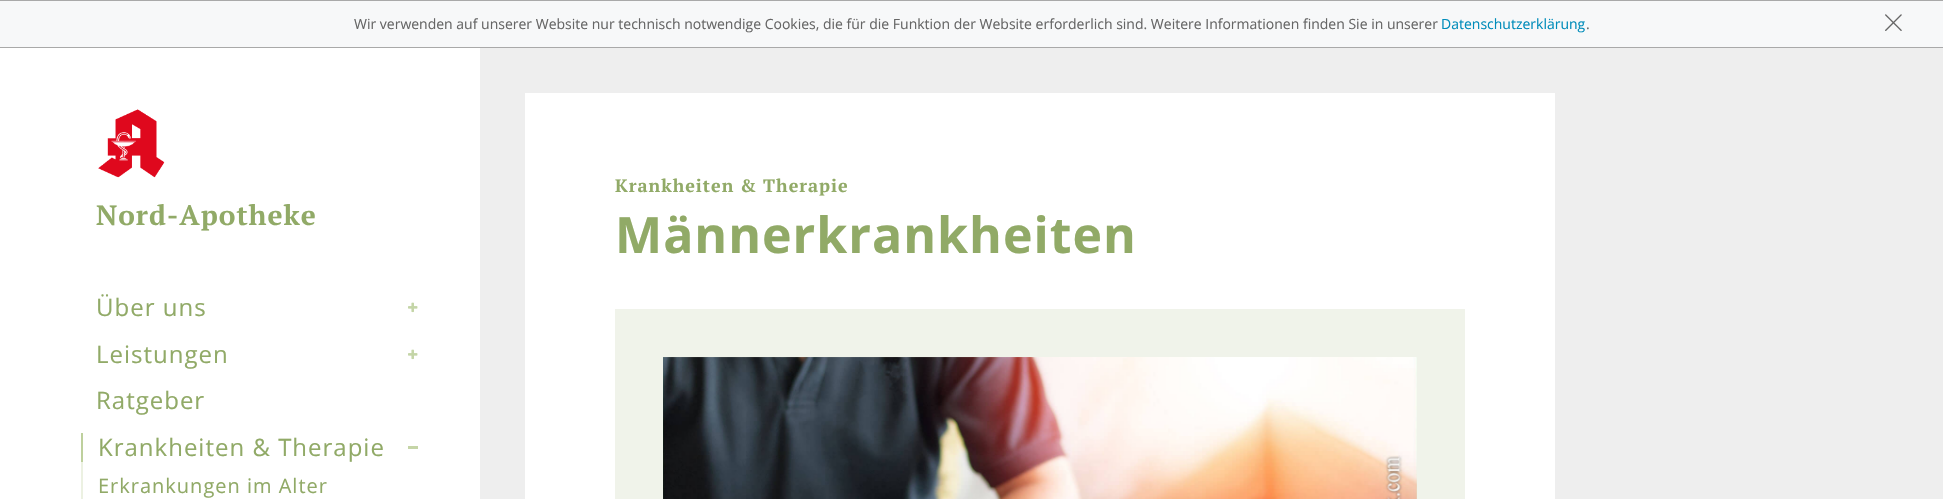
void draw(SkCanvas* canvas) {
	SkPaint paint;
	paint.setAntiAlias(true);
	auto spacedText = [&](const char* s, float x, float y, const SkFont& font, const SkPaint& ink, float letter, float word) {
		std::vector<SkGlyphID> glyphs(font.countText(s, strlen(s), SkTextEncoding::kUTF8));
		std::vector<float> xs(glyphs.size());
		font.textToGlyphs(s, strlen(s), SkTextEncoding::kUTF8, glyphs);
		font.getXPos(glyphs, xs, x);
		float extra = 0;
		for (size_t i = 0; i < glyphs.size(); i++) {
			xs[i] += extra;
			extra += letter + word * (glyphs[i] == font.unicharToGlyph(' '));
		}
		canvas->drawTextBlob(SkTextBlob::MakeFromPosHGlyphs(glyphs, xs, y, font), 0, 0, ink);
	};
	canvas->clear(0xffeeeeee);
	paint.setColor(0xfff7f8f9);
	canvas->drawRect(SkRect::MakeXYWH(0, 1, 1943, 46), paint);
	paint.setColor(0xffa9a9a9);
	canvas->drawRect(SkRect::MakeXYWH(0, 0, 1943, 1), paint);
	canvas->drawRect(SkRect::MakeXYWH(0, 47, 1943, 1), paint);
	SkFont f1(fontMgr->matchFamilyStyle("Open Sans", SkFontStyle::Normal()), 14);
	f1.setSubpixel(true);
	paint.setColor(0xff666666);
	canvas->drawString("Wir verwenden auf unserer Website nur technisch notwendige Cookies, die für die Funktion der Website erforderlich sind. Weitere Informationen finden Sie in unserer", 354, 29, f1, paint);
	paint.setColor(0xff008cba);
	canvas->drawString("Datenschutzerklärung", 1441, 29, f1, paint);
	paint.setColor(0xff666666);
	canvas->drawString(".", 1586, 29, f1, paint);
	canvas->drawImageRect(SkImages::DeferredFromEncodedData(SkData::MakeFromFileName("img1.png")), SkRect::MakeXYWH(1885, 14, 17, 17), SkSamplingOptions());
	paint.setColor(0xffffffff);
	canvas->drawRect(SkRect::MakeXYWH(0, 48, 480, 451), paint);
	canvas->drawImageRect(SkImages::DeferredFromEncodedData(SkData::MakeFromFileName("img2.png")), SkRect::MakeXYWH(98, 109, 67, 69), SkSamplingOptions());
	SkFont f2(fontMgr->matchFamilyStyle("PT Serif", SkFontStyle::Bold()), 28);
	f2.setSubpixel(true);
	paint.setColor(0xff91aa67);
	spacedText("Nord-Apotheke", 96, 225, f2, paint, 1, 0);
	SkFont f3(fontMgr->matchFamilyStyle("Open Sans", SkFontStyle::Normal()), 24);
	f3.setSubpixel(true);
	spacedText("Über uns", 96, 316, f3, paint, 1, 0);
	canvas->drawImageRect(SkImages::DeferredFromEncodedData(SkData::MakeFromFileName("img3.png")), SkRect::MakeXYWH(408, 302, 10, 11), SkSamplingOptions());
	spacedText("Leistungen", 96, 363, f3, paint, 1, 0);
	canvas->drawImageRect(SkImages::DeferredFromEncodedData(SkData::MakeFromFileName("img3.png")), SkRect::MakeXYWH(408, 349, 10, 11), SkSamplingOptions());
	spacedText("Ratgeber", 96, 409, f3, paint, 1, 0);
	paint.setColor(0xffbed09d);
	canvas->drawRect(SkRect::MakeXYWH(81, 433, 2, 29), paint);
	paint.setColor(0xff91aa67);
	spacedText("Krankheiten & Therapie", 98, 456, f3, paint, 1, 0);
	paint.setColor(0xffc5d5a7);
	canvas->drawRect(SkRect::MakeXYWH(408, 446, 10, 3), paint);
	paint.setColor(0xffecf1e2);
	canvas->drawRect(SkRect::MakeXYWH(81, 462, 2, 37), paint);
	SkFont f4(fontMgr->matchFamilyStyle("Open Sans", SkFontStyle::Normal()), 20);
	f4.setSubpixel(true);
	paint.setColor(0xff91aa67);
	spacedText("Erkrankungen im Alter", 98, 493, f4, paint, 1, 0);
	paint.setColor(0xffffffff);
	canvas->drawRect(SkRect::MakeXYWH(525, 93, 1030, 406), paint);
	SkFont f5(fontMgr->matchFamilyStyle("PT Serif", SkFontStyle::Bold()), 18);
	f5.setSubpixel(true);
	paint.setColor(0xff91aa67);
	spacedText("Krankheiten & Therapie", 615, 192, f5, paint, 1, 0);
	SkFont f6(fontMgr->matchFamilyStyle("Open Sans", SkFontStyle::Bold()), 50);
	f6.setSubpixel(true);
	spacedText("Männerkrankheiten", 615, 253, f6, paint, 1, 0);
	paint.setColor(0xfff0f3ea);
	canvas->drawRect(SkRect::MakeXYWH(615, 309, 850, 190), paint);
	canvas->drawImageRect(SkImages::DeferredFromEncodedData(SkData::MakeFromFileName("img4.png")), SkRect::MakeXYWH(663, 357, 754, 142), SkSamplingOptions());
}
